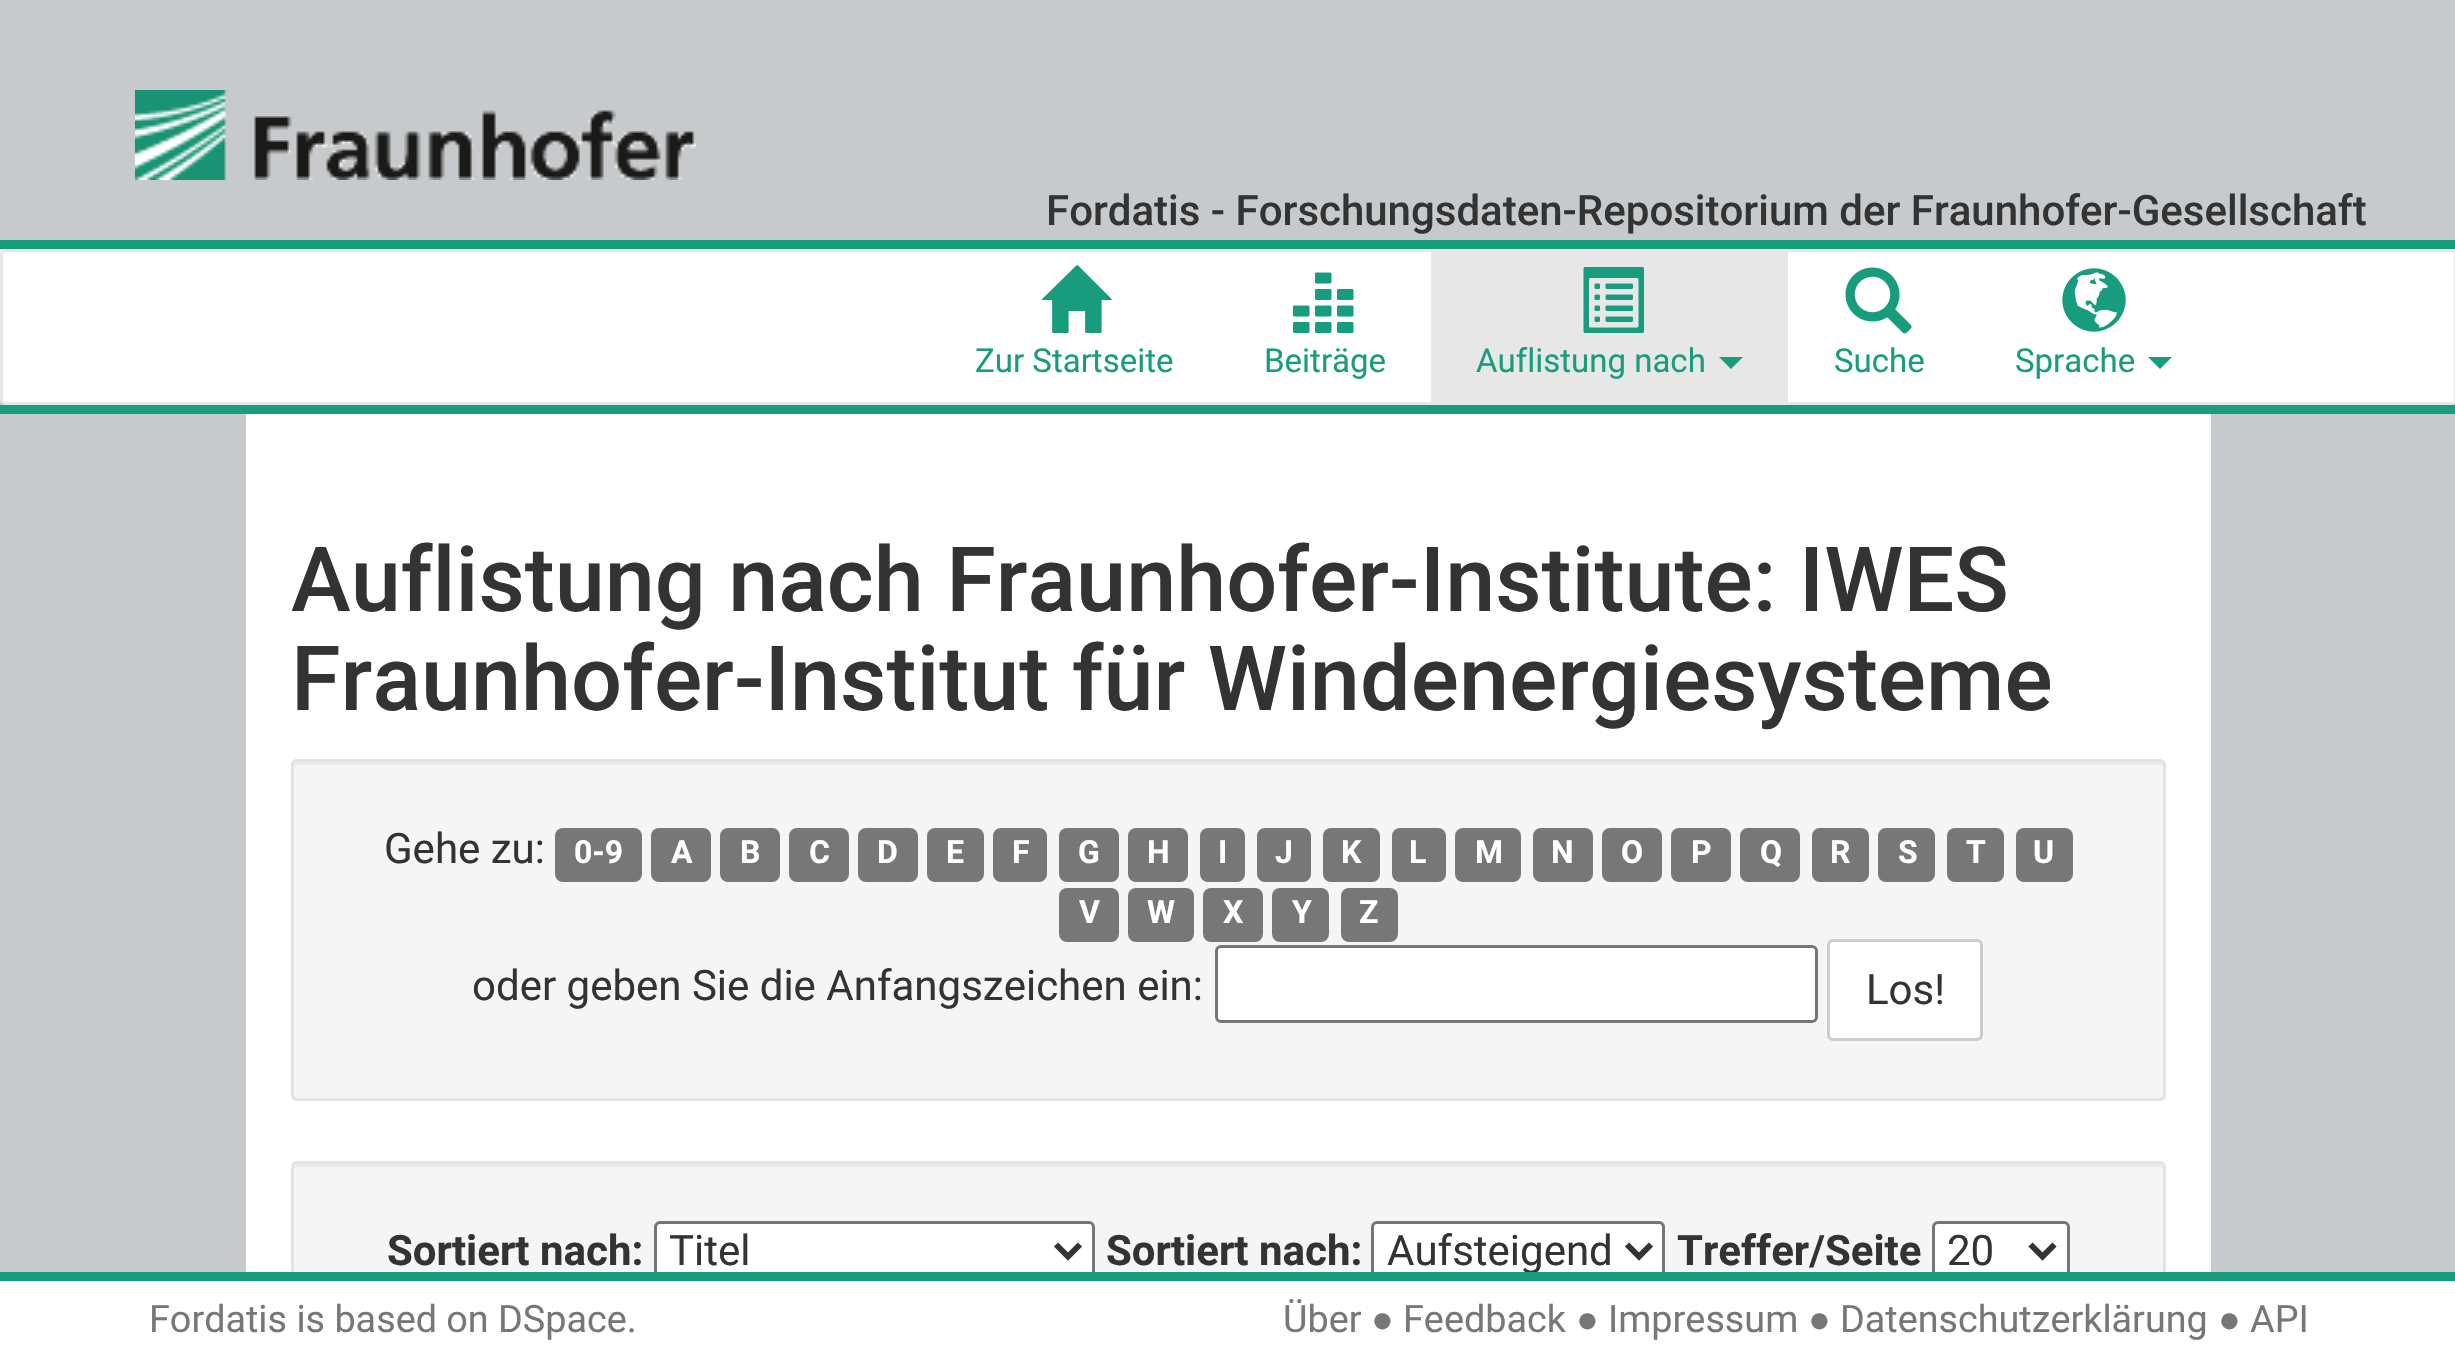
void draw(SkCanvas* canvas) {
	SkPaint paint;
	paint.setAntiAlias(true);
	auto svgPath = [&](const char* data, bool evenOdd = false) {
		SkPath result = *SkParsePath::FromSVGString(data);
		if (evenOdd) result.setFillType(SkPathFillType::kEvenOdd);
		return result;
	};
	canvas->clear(0xffffffff);
	paint.setColor(0xffc7cacc);
	canvas->drawRect(SkRect::MakeXYWH(0, 399, 2455, 873), paint);
	paint.setColor(0xff179c7d);
	canvas->drawRect(SkRect::MakeXYWH(0, 405, 2455, 9), paint);
	paint.setColor(0xffc7cacc);
	canvas->drawRect(SkRect::MakeXYWH(0, 0, 2455, 240), paint);
	paint.setColor(0xff179c7d);
	canvas->drawRect(SkRect::MakeXYWH(0, 240, 2455, 9), paint);
	canvas->drawImageRect(SkImages::DeferredFromEncodedData(SkData::MakeFromFileName("img1.png")), SkRect::MakeXYWH(135, 90, 561, 90), SkSamplingOptions());
	SkFont f1(fontMgr->matchFamilyStyle("Roboto", SkFontStyle(500, SkFontStyle::kNormal_Width, SkFontStyle::kUpright_Slant)), 42);
	f1.setSubpixel(true);
	paint.setColor(0xff333333);
	canvas->drawString("Fordatis - Forschungsdaten-Repositorium der Fraunhofer-Gesellschaft", 1046, 225, f1, paint);
	paint.setColor(0xffffffff);
	canvas->drawRoundRect(SkRect::MakeXYWH(1.5, 250.5, 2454, 153), 4.5, 4.5, paint);
	paint.setStroke(true);
	paint.setStrokeWidth(3);
	paint.setColor(0xffe7e7e7);
	canvas->drawRoundRect(SkRect::MakeXYWH(1.5, 250.5, 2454, 153), 4.5, 4.5, paint);
	canvas->drawImageRect(SkImages::DeferredFromEncodedData(SkData::MakeFromFileName("img2.png")), SkRect::MakeXYWH(1041, 265, 71, 68), SkSamplingOptions());
	SkFont f2(fontMgr->matchFamilyStyle("Roboto", SkFontStyle::Normal()), 33);
	f2.setSubpixel(true);
	paint.setStroke(false);
	paint.setColor(0xff179c7d);
	canvas->drawString("Zur Startseite", 975, 372, f2, paint);
	canvas->drawImageRect(SkImages::DeferredFromEncodedData(SkData::MakeFromFileName("img3.png")), SkRect::MakeXYWH(1293, 272, 61, 61), SkSamplingOptions());
	canvas->drawString("Beiträge", 1264, 372, f2, paint);
	paint.setColor(0xffe7e7e7);
	canvas->drawRect(SkRect::MakeXYWH(1431, 252, 357, 150), paint);
	canvas->drawImageRect(SkImages::DeferredFromEncodedData(SkData::MakeFromFileName("img4.png")), SkRect::MakeXYWH(1583, 267, 61, 66), SkSamplingOptions());
	paint.setColor(0xff179c7d);
	canvas->drawString("Auflistung nach", 1476, 372, f2, paint);
	canvas->drawPath(svgPath("M1719 357H1743L1731 369Z"), paint);
	canvas->drawImageRect(SkImages::DeferredFromEncodedData(SkData::MakeFromFileName("img5.png")), SkRect::MakeXYWH(1845, 267, 67, 67), SkSamplingOptions());
	canvas->drawString("Suche", 1834, 372, f2, paint);
	canvas->drawImageRect(SkImages::DeferredFromEncodedData(SkData::MakeFromFileName("img6.png")), SkRect::MakeXYWH(2062, 268, 64, 64), SkSamplingOptions());
	canvas->drawString("Sprache", 2015, 372, f2, paint);
	canvas->drawPath(svgPath("M2148 357H2172L2160 369Z"), paint);
	paint.setColor(0xffffffff);
	canvas->drawRect(SkRect::MakeXYWH(246, 414, 1965, 858), paint);
	SkFont f3(fontMgr->matchFamilyStyle("Roboto", SkFontStyle(500, SkFontStyle::kNormal_Width, SkFontStyle::kUpright_Slant)), 90);
	f3.setSubpixel(true);
	paint.setColor(0xff333333);
	canvas->drawString("Auflistung nach Fraunhofer-Institute: IWES", 291, 611, f3, paint);
	canvas->drawString("Fraunhofer-Institut für Windenergiesysteme", 291, 710, f3, paint);
	paint.setColor(0xfff5f5f5);
	canvas->drawRoundRect(SkRect::MakeXYWH(291, 759, 1875, 342), 6, 6, paint);
	paint.setColor(0xffe9e9e9);
	canvas->drawPath(svgPath("M297 765H2160C2162 765 2163 766 2163 768C2163 766 2163 762 2160 762H297C294 762 294 766 294 768C294 766 295 765 297 765Z"), paint);
	paint.setStroke(true);
	paint.setColor(0xffe3e3e3);
	canvas->drawRoundRect(SkRect::MakeXYWH(292.5, 760.5, 1872, 339), 4.5, 4.5, paint);
	SkFont f4(fontMgr->matchFamilyStyle("Roboto", SkFontStyle::Normal()), 42);
	f4.setSubpixel(true);
	paint.setStroke(false);
	paint.setColor(0xff333333);
	canvas->drawString("Gehe zu:", 384, 863, f4, paint);
	paint.setColor(0xff777777);
	canvas->drawRoundRect(SkRect::MakeXYWH(555, 828, 87, 54), 8, 8, paint);
	SkFont f5(fontMgr->matchFamilyStyle("Roboto", SkFontStyle::Bold()), 32);
	f5.setSubpixel(true);
	paint.setColor(0xffffffff);
	canvas->drawString("0-9", 574, 863, f5, paint);
	paint.setColor(0xff777777);
	canvas->drawRoundRect(SkRect::MakeXYWH(651, 828, 60, 54), 8, 8, paint);
	paint.setColor(0xffffffff);
	canvas->drawString("A", 671, 863, f5, paint);
	paint.setColor(0xff777777);
	canvas->drawRoundRect(SkRect::MakeXYWH(720, 828, 60, 54), 8, 8, paint);
	paint.setColor(0xffffffff);
	canvas->drawString("B", 740, 863, f5, paint);
	paint.setColor(0xff777777);
	canvas->drawRoundRect(SkRect::MakeXYWH(789, 828, 60, 54), 8, 8, paint);
	paint.setColor(0xffffffff);
	canvas->drawString("C", 809, 863, f5, paint);
	paint.setColor(0xff777777);
	canvas->drawRoundRect(SkRect::MakeXYWH(858, 828, 60, 54), 8, 8, paint);
	paint.setColor(0xffffffff);
	canvas->drawString("D", 877, 863, f5, paint);
	paint.setColor(0xff777777);
	canvas->drawRoundRect(SkRect::MakeXYWH(927, 828, 57, 54), 8, 8, paint);
	paint.setColor(0xffffffff);
	canvas->drawString("E", 946, 863, f5, paint);
	paint.setColor(0xff777777);
	canvas->drawRoundRect(SkRect::MakeXYWH(993, 828, 54, 54), 8, 8, paint);
	paint.setColor(0xffffffff);
	canvas->drawString("F", 1012, 863, f5, paint);
	paint.setColor(0xff777777);
	canvas->drawRoundRect(SkRect::MakeXYWH(1059, 828, 60, 54), 8, 8, paint);
	paint.setColor(0xffffffff);
	canvas->drawString("G", 1078, 863, f5, paint);
	paint.setColor(0xff777777);
	canvas->drawRoundRect(SkRect::MakeXYWH(1128, 828, 60, 54), 8, 8, paint);
	paint.setColor(0xffffffff);
	canvas->drawString("H", 1147, 863, f5, paint);
	paint.setColor(0xff777777);
	canvas->drawRoundRect(SkRect::MakeXYWH(1200, 828, 45, 54), 8, 8, paint);
	paint.setColor(0xffffffff);
	canvas->drawString("I", 1218, 863, f5, paint);
	paint.setColor(0xff777777);
	canvas->drawRoundRect(SkRect::MakeXYWH(1257, 828, 54, 54), 8, 8, paint);
	paint.setColor(0xffffffff);
	canvas->drawString("J", 1275, 863, f5, paint);
	paint.setColor(0xff777777);
	canvas->drawRoundRect(SkRect::MakeXYWH(1323, 828, 57, 54), 8, 8, paint);
	paint.setColor(0xffffffff);
	canvas->drawString("K", 1341, 863, f5, paint);
	paint.setColor(0xff777777);
	canvas->drawRoundRect(SkRect::MakeXYWH(1392, 828, 54, 54), 8, 8, paint);
	paint.setColor(0xffffffff);
	canvas->drawString("L", 1409, 863, f5, paint);
	paint.setColor(0xff777777);
	canvas->drawRoundRect(SkRect::MakeXYWH(1455, 828, 66, 54), 8, 8, paint);
	paint.setColor(0xffffffff);
	canvas->drawString("M", 1475, 863, f5, paint);
	paint.setColor(0xff777777);
	canvas->drawRoundRect(SkRect::MakeXYWH(1533, 828, 60, 54), 8, 8, paint);
	paint.setColor(0xffffffff);
	canvas->drawString("N", 1551, 863, f5, paint);
	paint.setColor(0xff777777);
	canvas->drawRoundRect(SkRect::MakeXYWH(1602, 828, 60, 54), 8, 8, paint);
	paint.setColor(0xffffffff);
	canvas->drawString("O", 1621, 863, f5, paint);
	paint.setColor(0xff777777);
	canvas->drawRoundRect(SkRect::MakeXYWH(1671, 828, 60, 54), 8, 8, paint);
	paint.setColor(0xffffffff);
	canvas->drawString("P", 1691, 863, f5, paint);
	paint.setColor(0xff777777);
	canvas->drawRoundRect(SkRect::MakeXYWH(1740, 828, 60, 54), 8, 8, paint);
	paint.setColor(0xffffffff);
	canvas->drawString("Q", 1760, 863, f5, paint);
	paint.setColor(0xff777777);
	canvas->drawRoundRect(SkRect::MakeXYWH(1812, 828, 57, 54), 8, 8, paint);
	paint.setColor(0xffffffff);
	canvas->drawString("R", 1830, 863, f5, paint);
	paint.setColor(0xff777777);
	canvas->drawRoundRect(SkRect::MakeXYWH(1878, 828, 57, 54), 8, 8, paint);
	paint.setColor(0xffffffff);
	canvas->drawString("S", 1898, 863, f5, paint);
	paint.setColor(0xff777777);
	canvas->drawRoundRect(SkRect::MakeXYWH(1947, 828, 57, 54), 8, 8, paint);
	paint.setColor(0xffffffff);
	canvas->drawString("T", 1966, 863, f5, paint);
	paint.setColor(0xff777777);
	canvas->drawRoundRect(SkRect::MakeXYWH(2016, 828, 57, 54), 8, 8, paint);
	paint.setColor(0xffffffff);
	canvas->drawString("U", 2033, 863, f5, paint);
	paint.setColor(0xff777777);
	canvas->drawRoundRect(SkRect::MakeXYWH(1059, 888, 60, 54), 8, 8, paint);
	paint.setColor(0xffffffff);
	canvas->drawString("V", 1079, 923, f5, paint);
	paint.setColor(0xff777777);
	canvas->drawRoundRect(SkRect::MakeXYWH(1128, 888, 66, 54), 8, 8, paint);
	paint.setColor(0xffffffff);
	canvas->drawString("W", 1147, 923, f5, paint);
	paint.setColor(0xff777777);
	canvas->drawRoundRect(SkRect::MakeXYWH(1203, 888, 60, 54), 8, 8, paint);
	paint.setColor(0xffffffff);
	canvas->drawString("X", 1223, 923, f5, paint);
	paint.setColor(0xff777777);
	canvas->drawRoundRect(SkRect::MakeXYWH(1272, 888, 57, 54), 8, 8, paint);
	paint.setColor(0xffffffff);
	canvas->drawString("Y", 1292, 923, f5, paint);
	paint.setColor(0xff777777);
	canvas->drawRoundRect(SkRect::MakeXYWH(1341, 888, 57, 54), 8, 8, paint);
	paint.setColor(0xffffffff);
	canvas->drawString("Z", 1359, 923, f5, paint);
	paint.setColor(0xff333333);
	canvas->drawString("oder geben Sie die Anfangszeichen ein:", 472, 1000, f4, paint);
	paint.setColor(0xffffffff);
	canvas->drawRoundRect(SkRect::MakeXYWH(1216.5, 946.5, 600, 75), 4.5, 4.5, paint);
	paint.setStroke(true);
	paint.setColor(0xff767676);
	canvas->drawRoundRect(SkRect::MakeXYWH(1216.5, 946.5, 600, 75), 4.5, 4.5, paint);
	paint.setStroke(false);
	paint.setColor(0xffffffff);
	canvas->drawRoundRect(SkRect::MakeXYWH(1828.5, 940.5, 153, 99), 4.5, 4.5, paint);
	paint.setStroke(true);
	paint.setColor(0xffcccccc);
	canvas->drawRoundRect(SkRect::MakeXYWH(1828.5, 940.5, 153, 99), 4.5, 4.5, paint);
	paint.setStroke(false);
	paint.setColor(0xff333333);
	canvas->drawString("Los!", 1866, 1004, f4, paint);
	paint.setColor(0xfff5f5f5);
	canvas->drawRoundRect(SkRect::MakeXYWH(291, 1161, 1875, 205), 6, 6, paint);
	paint.setColor(0xffe9e9e9);
	canvas->drawPath(svgPath("M297 1167H2160C2162 1167 2163 1168 2163 1170C2163 1168 2163 1164 2160 1164H297C294 1164 294 1168 294 1170C294 1168 295 1167 297 1167Z"), paint);
	paint.setStroke(true);
	paint.setColor(0xffe3e3e3);
	canvas->drawRoundRect(SkRect::MakeXYWH(292.5, 1162.5, 1872, 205), 4.5, 4.5, paint);
	SkFont f6(fontMgr->matchFamilyStyle("Roboto", SkFontStyle::Bold()), 42);
	f6.setSubpixel(true);
	paint.setStroke(false);
	paint.setColor(0xff333333);
	canvas->drawString("Sortiert nach:", 387, 1265, f6, paint);
	paint.setColor(0xffffffff);
	canvas->drawRoundRect(SkRect::MakeXYWH(655.5, 1222.5, 438, 57), 4.5, 4.5, paint);
	paint.setStroke(true);
	paint.setColor(0xff767676);
	canvas->drawRoundRect(SkRect::MakeXYWH(655.5, 1222.5, 438, 57), 4.5, 4.5, paint);
	paint.setStrokeWidth(6);
	paint.setColor(0xff333333);
	canvas->drawPath(svgPath("M1056 1244.5L1068 1256.5L1080 1244.5"), paint);
	paint.setStroke(false);
	canvas->drawString("Titel", 669, 1265, f4, paint);
	canvas->drawString("Sortiert nach:", 1106, 1265, f6, paint);
	paint.setColor(0xffffffff);
	canvas->drawRoundRect(SkRect::MakeXYWH(1372.5, 1222.5, 291, 57), 4.5, 4.5, paint);
	paint.setStroke(true);
	paint.setStrokeWidth(3);
	paint.setColor(0xff767676);
	canvas->drawRoundRect(SkRect::MakeXYWH(1372.5, 1222.5, 291, 57), 4.5, 4.5, paint);
	paint.setStrokeWidth(6);
	paint.setColor(0xff333333);
	canvas->drawPath(svgPath("M1627 1244.5L1639 1256.5L1651 1244.5"), paint);
	paint.setStroke(false);
	canvas->drawString("Aufsteigend", 1387, 1265, f4, paint);
	canvas->drawString("Treffer/Seite", 1677, 1265, f6, paint);
	paint.setColor(0xffffffff);
	canvas->drawRoundRect(SkRect::MakeXYWH(1933.5, 1222.5, 135, 57), 4.5, 4.5, paint);
	paint.setStroke(true);
	paint.setStrokeWidth(3);
	paint.setColor(0xff767676);
	canvas->drawRoundRect(SkRect::MakeXYWH(1933.5, 1222.5, 135, 57), 4.5, 4.5, paint);
	paint.setStrokeWidth(6);
	paint.setColor(0xff333333);
	canvas->drawPath(svgPath("M2030.5 1244.5L2042.5 1256.5L2054.5 1244.5"), paint);
	paint.setStroke(false);
	canvas->drawString("20", 1947, 1265, f4, paint);
	paint.setColor(0xffffffff);
	canvas->drawRect(SkRect::MakeXYWH(291, 1281, 1875, 79), paint);
	paint.setColor(0xff179c7d);
	canvas->drawRect(SkRect::MakeXYWH(0, 1272, 2455, 9), paint);
	SkFont f7(fontMgr->matchFamilyStyle("Roboto", SkFontStyle::Normal()), 37.75);
	f7.setSubpixel(true);
	paint.setColor(0xff777777);
	canvas->drawString("Fordatis is based on DSpace.", 149, 1332, f7, paint);
	canvas->drawString("Über", 1283, 1332, f7, paint);
	SkFont f8(fontMgr->matchFamilyStyle("Liberation Sans", SkFontStyle::Normal()), 37.75);
	f8.setSubpixel(true);
	canvas->drawString("●", 1371, 1332, f8, paint);
	canvas->drawString("Feedback", 1403, 1332, f7, paint);
	canvas->drawString("●", 1576, 1332, f8, paint);
	canvas->drawString("Impressum", 1608, 1332, f7, paint);
	canvas->drawString("●", 1808, 1332, f8, paint);
	canvas->drawString("Datenschutzerklärung", 1840, 1332, f7, paint);
	canvas->drawString("●", 2218, 1332, f8, paint);
	canvas->drawString("API", 2250, 1332, f7, paint);
}
